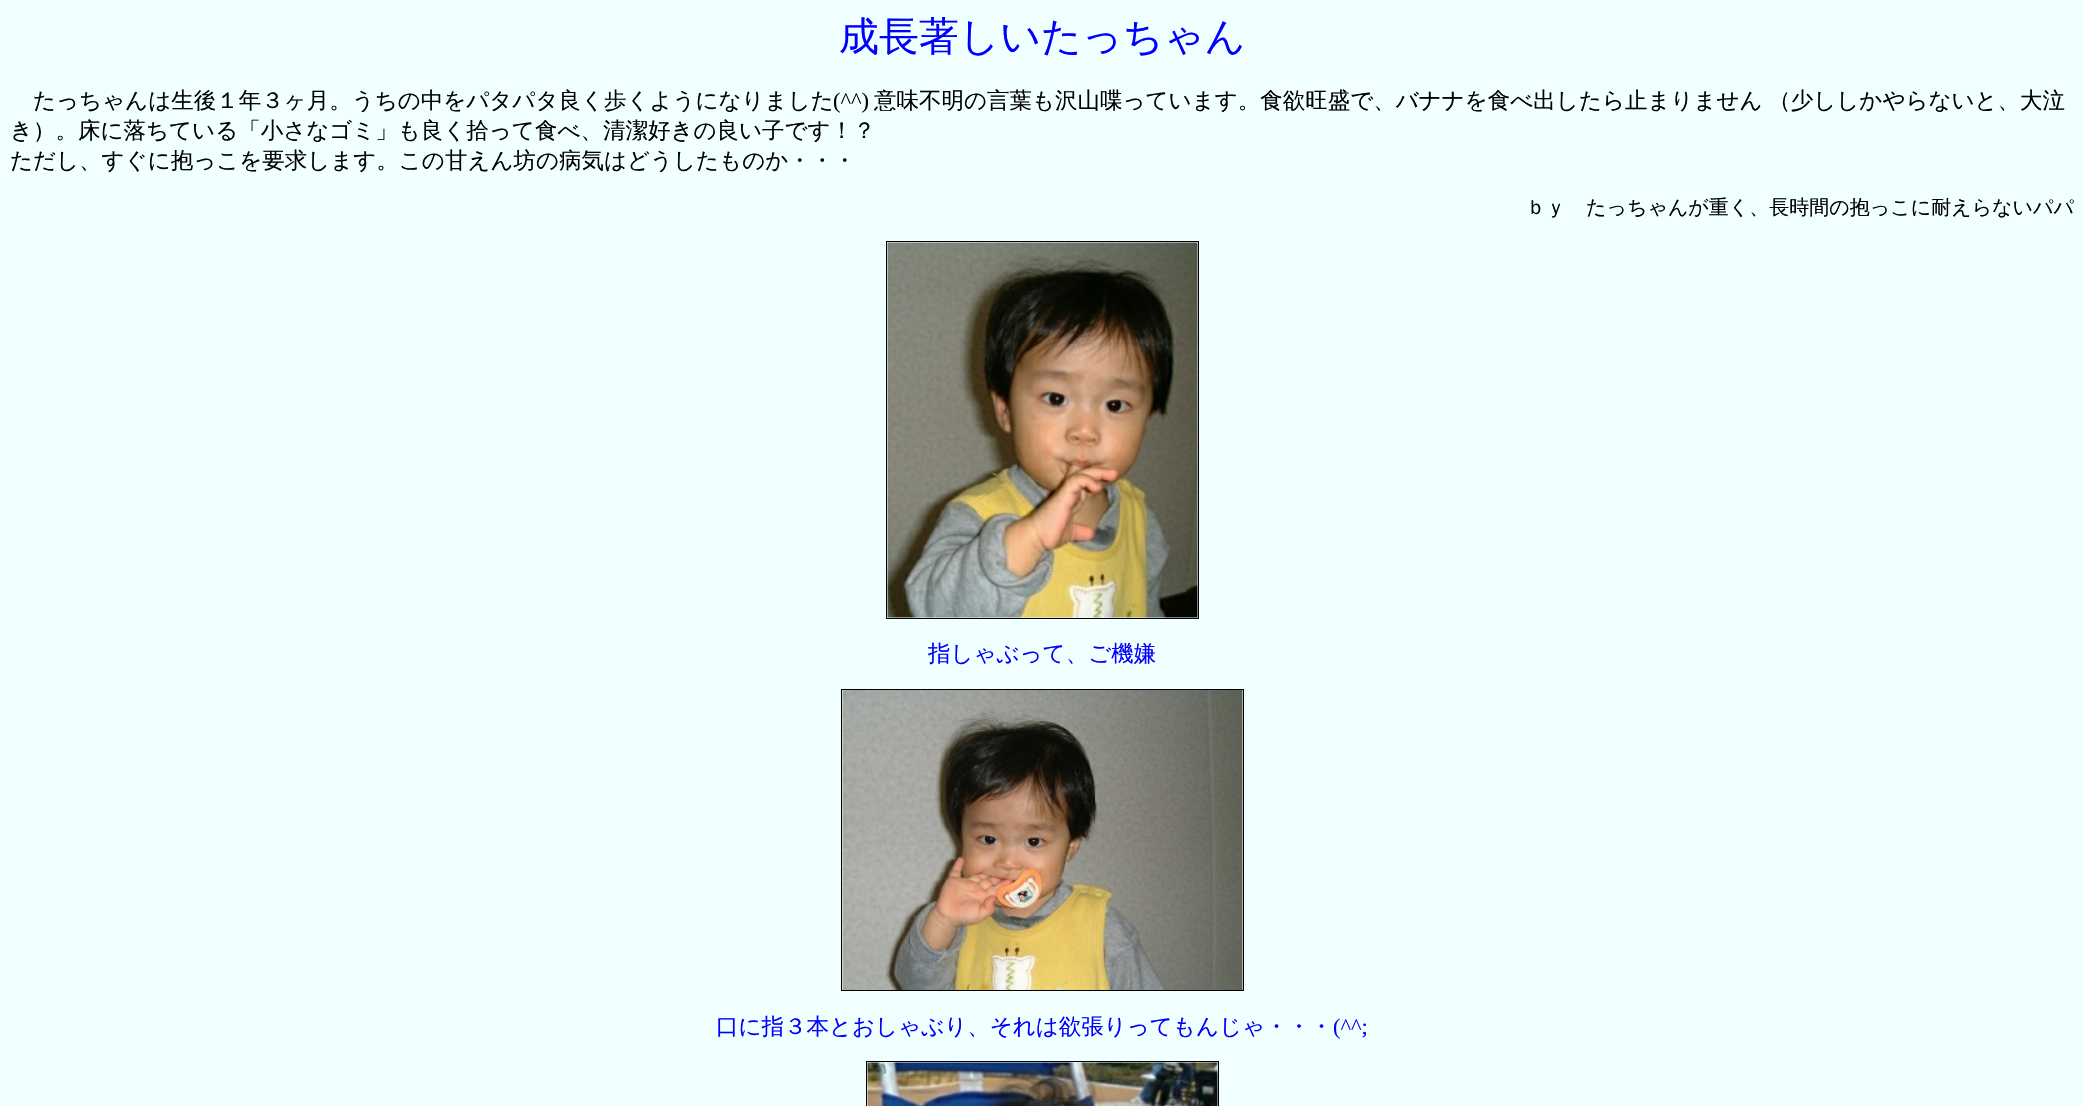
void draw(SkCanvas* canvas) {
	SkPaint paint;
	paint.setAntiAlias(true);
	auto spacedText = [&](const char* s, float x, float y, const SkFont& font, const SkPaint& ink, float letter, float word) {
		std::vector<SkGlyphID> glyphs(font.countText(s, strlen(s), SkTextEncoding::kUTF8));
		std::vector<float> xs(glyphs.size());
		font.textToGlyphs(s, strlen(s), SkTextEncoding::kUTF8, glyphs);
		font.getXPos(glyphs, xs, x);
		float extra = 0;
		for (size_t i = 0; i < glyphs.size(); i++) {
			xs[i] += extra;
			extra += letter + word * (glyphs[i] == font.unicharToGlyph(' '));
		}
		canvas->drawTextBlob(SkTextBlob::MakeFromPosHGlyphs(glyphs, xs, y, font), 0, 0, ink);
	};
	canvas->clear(0xfff0ffff);
	SkFont f1(fontMgr->matchFamilyStyle("WenQuanYi Zen Hei", SkFontStyle(500, SkFontStyle::kNormal_Width, SkFontStyle::kUpright_Slant)), 40);
	f1.setSubpixel(true);
	paint.setColor(0xff0000ff);
	canvas->drawString("成長著しいたっちゃん", 839, 50, f1, paint);
	SkFont f2(fontMgr->matchFamilyStyle("WenQuanYi Zen Hei", SkFontStyle(500, SkFontStyle::kNormal_Width, SkFontStyle::kUpright_Slant)), 22.5);
	f2.setSubpixel(true);
	paint.setColor(0xff000000);
	canvas->drawString("たっちゃんは生後１年３ヶ月。うちの中をパタパタ良く歩くようになりました", 33, 108, f2, paint);
	SkFont f3(fontMgr->matchFamilyStyle("Liberation Serif", SkFontStyle::Normal()), 22.5);
	f3.setSubpixel(true);
	canvas->drawString("(^^)", 833, 108, f3, paint);
	spacedText("意味不明の言葉も沢山喋っています。食欲旺盛で、バナナを食べ出したら止まりません （少ししかやらないと、大泣", 874, 108, f2, paint, 0, -1);
	canvas->drawString("き）。床に落ちている「小さなゴミ」も良く拾って食べ、清潔好きの良い子です！？", 10, 138, f2, paint);
	canvas->drawString("ただし、すぐに抱っこを要求します。この甘えん坊の病気はどうしたものか・・・", 10, 168, f2, paint);
	SkFont f4(fontMgr->matchFamilyStyle("WenQuanYi Zen Hei", SkFontStyle(500, SkFontStyle::kNormal_Width, SkFontStyle::kUpright_Slant)), 20);
	f4.setSubpixel(true);
	canvas->drawString("ｂｙ　たっちゃんが重く、長時間の抱っこに耐えらないパパ", 1526, 214, f4, paint);
	paint.setStroke(true);
	paint.setStrokeWidth(1);
	canvas->drawRect(SkRect::MakeXYWH(886.5, 241.5, 312, 377), paint);
	canvas->drawImageRect(SkImages::DeferredFromEncodedData(SkData::MakeFromFileName("img1.png")), SkRect::MakeXYWH(887, 242, 311, 376), SkSamplingOptions());
	paint.setStroke(false);
	paint.setColor(0xff0000ff);
	canvas->drawString("指しゃぶって、ご機嫌", 928, 661, f2, paint);
	paint.setStroke(true);
	paint.setColor(0xff000000);
	canvas->drawRect(SkRect::MakeXYWH(841.5, 689.5, 402, 301), paint);
	canvas->drawImageRect(SkImages::DeferredFromEncodedData(SkData::MakeFromFileName("img2.png")), SkRect::MakeXYWH(842, 690, 401, 300), SkSamplingOptions());
	paint.setStroke(false);
	paint.setColor(0xff0000ff);
	canvas->drawString("口に指３本とおしゃぶり、それは欲張りってもんじゃ・・・", 716, 1034, f2, paint);
	canvas->drawString("(^^;", 1333, 1034, f3, paint);
	paint.setStroke(true);
	paint.setColor(0xff000000);
	canvas->drawRect(SkRect::MakeXYWH(866.5, 1061.5, 352, 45), paint);
	canvas->drawImageRect(SkImages::DeferredFromEncodedData(SkData::MakeFromFileName("img3.png")), SkRect::MakeXYWH(867, 1062, 351, 44), SkSamplingOptions());
}
